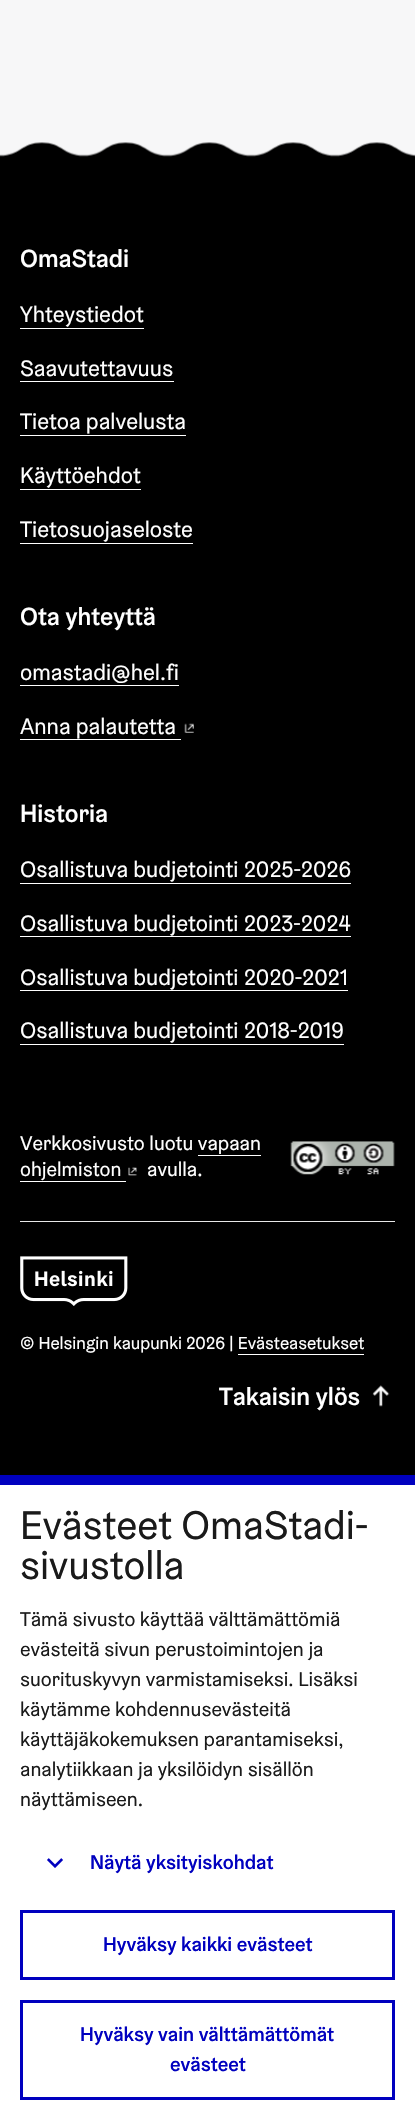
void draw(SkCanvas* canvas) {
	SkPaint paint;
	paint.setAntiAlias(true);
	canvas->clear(0xffffffff);
	paint.setColor(0xfff7f7f8);
	canvas->drawRect(SkRect::MakeXYWH(0, 0, 415, 157), paint);
	canvas->drawImageRect(SkImages::DeferredFromEncodedData(SkData::MakeFromFileName("img1.png")), SkRect::MakeXYWH(0, 142, 415, 36), SkSamplingOptions());
	paint.setColor(0xff000000);
	canvas->drawRect(SkRect::MakeXYWH(0, 178, 415, 1297), paint);
	SkFont f1(fontMgr->matchFamilyStyle("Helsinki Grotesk", SkFontStyle(500, SkFontStyle::kNormal_Width, SkFontStyle::kUpright_Slant)), 25);
	f1.setSubpixel(true);
	paint.setColor(0xffffffff);
	canvas->drawString("OmaStadi", 20, 267, f1, paint);
	SkFont f2(fontMgr->matchFamilyStyle("Helsinki Grotesk", SkFontStyle::Normal()), 22.5);
	f2.setSubpixel(true);
	canvas->drawString("Yhteystiedot", 20, 322, f2, paint);
	canvas->drawRect(SkRect::MakeXYWH(20, 328, 124, 1), paint);
	canvas->drawString("Saavutettavuus", 20, 376, f2, paint);
	canvas->drawRect(SkRect::MakeXYWH(20, 381, 154, 1), paint);
	canvas->drawString("Tietoa palvelusta", 20, 429, f2, paint);
	canvas->drawRect(SkRect::MakeXYWH(20, 435, 166, 1), paint);
	canvas->drawString("Käyttöehdot", 20, 483, f2, paint);
	canvas->drawRect(SkRect::MakeXYWH(20, 489, 121, 1), paint);
	canvas->drawString("Tietosuojaseloste", 20, 537, f2, paint);
	canvas->drawRect(SkRect::MakeXYWH(20, 543, 173, 1), paint);
	canvas->drawString("Ota yhteyttä", 20, 625, f1, paint);
	canvas->drawString("omastadi@hel.fi", 20, 680, f2, paint);
	canvas->drawRect(SkRect::MakeXYWH(20, 685, 159, 1), paint);
	canvas->drawString("Anna palautetta", 20, 734, f2, paint);
	canvas->drawRect(SkRect::MakeXYWH(20, 739, 161, 1), paint);
	canvas->drawImageRect(SkImages::DeferredFromEncodedData(SkData::MakeFromFileName("img2.png")), SkRect::MakeXYWH(184, 723, 10, 10), SkSamplingOptions());
	canvas->drawString("Historia", 20, 822, f1, paint);
	canvas->drawString("Osallistuva budjetointi 2025-2026", 20, 877, f2, paint);
	canvas->drawRect(SkRect::MakeXYWH(20, 883, 331, 1), paint);
	canvas->drawString("Osallistuva budjetointi 2023-2024", 20, 931, f2, paint);
	canvas->drawRect(SkRect::MakeXYWH(20, 936, 331, 1), paint);
	canvas->drawString("Osallistuva budjetointi 2020-2021", 20, 985, f2, paint);
	canvas->drawRect(SkRect::MakeXYWH(20, 990, 328, 1), paint);
	canvas->drawString("Osallistuva budjetointi 2018-2019", 20, 1038, f2, paint);
	canvas->drawRect(SkRect::MakeXYWH(20, 1044, 324, 1), paint);
	SkFont f3(fontMgr->matchFamilyStyle("Helsinki Grotesk", SkFontStyle::Normal()), 20);
	f3.setSubpixel(true);
	canvas->drawString("Verkkosivusto luotu vapaan", 20, 1150, f3, paint);
	canvas->drawString("ohjelmiston", 20, 1176, f3, paint);
	canvas->drawRect(SkRect::MakeXYWH(198, 1155, 63, 1), paint);
	canvas->drawRect(SkRect::MakeXYWH(20, 1181, 106, 1), paint);
	canvas->drawImageRect(SkImages::DeferredFromEncodedData(SkData::MakeFromFileName("img3.png")), SkRect::MakeXYWH(128, 1167, 9, 9), SkSamplingOptions());
	canvas->drawString("avulla.", 147, 1176, f3, paint);
	canvas->drawImageRect(SkImages::DeferredFromEncodedData(SkData::MakeFromFileName("img4.png")), SkRect::MakeXYWH(290, 1140, 105, 35), SkSamplingOptions());
	paint.setColor(0xffe8e8e8);
	canvas->drawRect(SkRect::MakeXYWH(20, 1221, 375, 1), paint);
	canvas->drawImageRect(SkImages::DeferredFromEncodedData(SkData::MakeFromFileName("img5.png")), SkRect::MakeXYWH(20, 1256, 108, 50), SkSamplingOptions());
	SkFont f4(fontMgr->matchFamilyStyle("Helsinki Grotesk", SkFontStyle::Normal()), 17.5);
	f4.setSubpixel(true);
	paint.setColor(0xffffffff);
	canvas->drawString("© Helsingin kaupunki 2026 | Evästeasetukset", 20, 1349, f4, paint);
	canvas->drawRect(SkRect::MakeXYWH(238, 1354, 126, 1), paint);
	canvas->drawString("Takaisin ylös", 219, 1405, f1, paint);
	canvas->drawImageRect(SkImages::DeferredFromEncodedData(SkData::MakeFromFileName("img6.png")), SkRect::MakeXYWH(372, 1385, 18, 22), SkSamplingOptions());
	paint.setColor(0xff0000bf);
	canvas->drawRect(SkRect::MakeXYWH(0, 1475, 415, 10), paint);
	SkFont f5(fontMgr->matchFamilyStyle("Helsinki Grotesk", SkFontStyle::Normal()), 40);
	f5.setSubpixel(true);
	paint.setColor(0xff1a1a1a);
	canvas->drawString("Evästeet OmaStadi-", 20, 1539, f5, paint);
	canvas->drawString("sivustolla", 20, 1579, f5, paint);
	canvas->drawString("Tämä sivusto käyttää välttämättömiä", 20, 1626, f3, paint);
	canvas->drawString("evästeitä sivun perustoimintojen ja", 20, 1656, f3, paint);
	canvas->drawString("suorituskyvyn varmistamiseksi. Lisäksi", 20, 1686, f3, paint);
	canvas->drawString("käytämme kohdennusevästeitä", 20, 1716, f3, paint);
	canvas->drawString("käyttäjäkokemuksen parantamiseksi,", 20, 1746, f3, paint);
	canvas->drawString("analytiikkaan ja yksilöidyn sisällön", 20, 1776, f3, paint);
	canvas->drawString("näyttämiseen.", 20, 1806, f3, paint);
	canvas->drawImageRect(SkImages::DeferredFromEncodedData(SkData::MakeFromFileName("img7.png")), SkRect::MakeXYWH(47, 1858, 16, 10), SkSamplingOptions());
	SkFont f6(fontMgr->matchFamilyStyle("Helsinki Grotesk", SkFontStyle(500, SkFontStyle::kNormal_Width, SkFontStyle::kUpright_Slant)), 20);
	f6.setSubpixel(true);
	paint.setColor(0xff0000bf);
	canvas->drawString("Näytä yksityiskohdat", 90, 1869, f6, paint);
	paint.setStroke(true);
	paint.setStrokeWidth(3);
	canvas->drawRect(SkRect::MakeXYWH(21.5, 1911.5, 372, 67), paint);
	paint.setStroke(false);
	canvas->drawString("Hyväksy kaikki evästeet", 103, 1951, f6, paint);
	paint.setStroke(true);
	canvas->drawRect(SkRect::MakeXYWH(21.5, 2001.5, 372, 97), paint);
	paint.setStroke(false);
	canvas->drawString("Hyväksy vain välttämättömät", 80, 2041, f6, paint);
	canvas->drawString("evästeet", 170, 2071, f6, paint);
}
